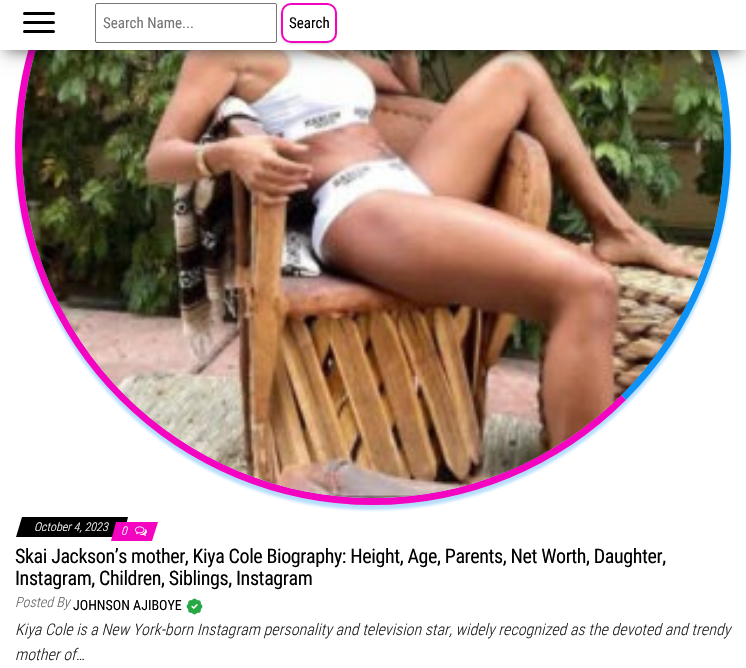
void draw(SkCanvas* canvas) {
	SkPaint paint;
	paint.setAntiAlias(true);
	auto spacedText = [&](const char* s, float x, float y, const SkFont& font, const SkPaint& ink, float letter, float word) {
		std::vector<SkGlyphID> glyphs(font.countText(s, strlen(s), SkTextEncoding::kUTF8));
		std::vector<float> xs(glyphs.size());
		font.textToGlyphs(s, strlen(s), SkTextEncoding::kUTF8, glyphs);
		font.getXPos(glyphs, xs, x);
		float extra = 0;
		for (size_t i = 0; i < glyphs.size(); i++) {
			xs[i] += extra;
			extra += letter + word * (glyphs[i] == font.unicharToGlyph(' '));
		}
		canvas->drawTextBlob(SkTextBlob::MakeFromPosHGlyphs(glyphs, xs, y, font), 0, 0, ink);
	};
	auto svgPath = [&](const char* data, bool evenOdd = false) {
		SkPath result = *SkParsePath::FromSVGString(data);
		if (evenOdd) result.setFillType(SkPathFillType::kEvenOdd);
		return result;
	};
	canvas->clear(0xffffffff);
	paint.setColor(0x4d0e92f5);
	paint.setMaskFilter(SkMaskFilter::MakeBlur(kNormal_SkBlurStyle, 1.5));
	canvas->drawRoundRect(SkRect::MakeXYWH(15, -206, 716, 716), 358, 358, paint);
	paint.setMaskFilter(nullptr);
	paint.setStroke(true);
	paint.setStrokeWidth(7);
	paint.setColor(0xff0e92f5);
	canvas->drawPath(svgPath("M122.5-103.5C189-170 279-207.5 373-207.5C467-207.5 557-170 623.5-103.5C690-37 727.5 53 727.5 147C727.5 241 690 331 623.5 397.5"), paint);
	paint.setColor(0xfff404c0);
	canvas->drawPath(svgPath("M623.5 397.5C557 464 467 501.5 373 501.5C279 501.5 189 464 122.5 397.5C56 331 18.5 241 18.5 147C18.5 53 56-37 122.5-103.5"), paint);
	canvas->drawImageRect(SkImages::DeferredFromEncodedData(SkData::MakeFromFileName("img1.png")), SkRect::MakeXYWH(22, 50, 702, 448), SkSamplingOptions());
	paint.setStroke(false);
	paint.setColor(0x33000000);
	paint.setMaskFilter(SkMaskFilter::MakeBlur(kNormal_SkBlurStyle, 5));
	canvas->drawRect(SkRect::MakeXYWH(5, 13, 736, 40), paint);
	paint.setMaskFilter(nullptr);
	paint.setColor(0x1f000000);
	paint.setMaskFilter(SkMaskFilter::MakeBlur(kNormal_SkBlurStyle, 10));
	canvas->drawRect(SkRect::MakeXYWH(0, 3, 746, 50), paint);
	paint.setMaskFilter(nullptr);
	paint.setColor(0x6b000000);
	paint.setMaskFilter(SkMaskFilter::MakeBlur(kNormal_SkBlurStyle, 10));
	canvas->drawRect(SkRect::MakeXYWH(12, 22, 722, 26), paint);
	paint.setMaskFilter(nullptr);
	paint.setColor(0xffffffff);
	canvas->drawRect(SkRect::MakeXYWH(0, 0, 746, 50), paint);
	paint.setColor(0xff000000);
	canvas->drawRoundRect(SkRect::MakeXYWH(23, 12, 32, 3), 1.5, 1.5, paint);
	canvas->drawRoundRect(SkRect::MakeXYWH(23, 21, 32, 3), 1.5, 1.5, paint);
	canvas->drawRoundRect(SkRect::MakeXYWH(23, 30, 32, 3), 1.5, 1.5, paint);
	paint.setStroke(true);
	paint.setStrokeWidth(1);
	paint.setColor(0xff767676);
	canvas->drawRoundRect(SkRect::MakeXYWH(95.5, 3.5, 181, 39), 1.5, 1.5, paint);
	SkFont f1(fontMgr->matchFamilyStyle("Roboto Condensed", SkFontStyle::Normal()), 15);
	f1.setSubpixel(true);
	paint.setStroke(false);
	paint.setColor(0xff757575);
	canvas->drawString("Search Name...", 103, 28, f1, paint);
	paint.setColor(0x26000000);
	paint.setMaskFilter(SkMaskFilter::MakeBlur(kNormal_SkBlurStyle, 1));
	canvas->drawRoundRect(SkRect::MakeXYWH(281, 4, 56, 40), 10, 10, paint);
	paint.setMaskFilter(nullptr);
	paint.setColor(0xffffffff);
	canvas->drawRoundRect(SkRect::MakeXYWH(282, 4, 54, 38), 9, 9, paint);
	paint.setStroke(true);
	paint.setStrokeWidth(2);
	paint.setColor(0xfff404c0);
	canvas->drawRoundRect(SkRect::MakeXYWH(282, 4, 54, 38), 9, 9, paint);
	paint.setStroke(false);
	paint.setColor(0xff000000);
	canvas->drawString("Search", 289, 28, f1, paint);
	canvas->drawPath(svgPath("M22 517H128L123 537H16Z"), paint);
	SkFont f2(fontMgr->matchFamilyStyle("Roboto Condensed", SkFontStyle(300, SkFontStyle::kNormal_Width, SkFontStyle::kItalic_Slant)), 12);
	f2.setSubpixel(true);
	paint.setColor(0xffffffff);
	canvas->drawString("October 4, 2023", 34, 531, f2, paint);
	paint.setColor(0xfff404c0);
	canvas->drawPath(svgPath("M116 522H158L152 541H111Z"), paint);
	paint.setColor(0xffffffff);
	canvas->drawString("0", 121, 535, f2, paint);
	canvas->drawImageRect(SkImages::DeferredFromEncodedData(SkData::MakeFromFileName("img2.png")), SkRect::MakeXYWH(135, 526, 12, 10), SkSamplingOptions());
	SkFont f3(fontMgr->matchFamilyStyle("Roboto Condensed", SkFontStyle::Normal()), 20);
	f3.setSubpixel(true);
	paint.setColor(0xff000000);
	spacedText("Skai Jackson’s mother, Kiya Cole Biography: Height, Age, Parents, Net Worth, Daughter,", 15, 563, f3, paint, -0.4, 0);
	spacedText("Instagram, Children, Siblings, Instagram", 15, 585, f3, paint, -0.4, 0);
	SkFont f4(fontMgr->matchFamilyStyle("Roboto Condensed", SkFontStyle(300, SkFontStyle::kNormal_Width, SkFontStyle::kItalic_Slant)), 14);
	f4.setSubpixel(true);
	paint.setColor(0xff646464);
	canvas->drawString("Posted By", 15, 607, f4, paint);
	SkFont f5(fontMgr->matchFamilyStyle("Roboto Condensed", SkFontStyle::Normal()), 14);
	f5.setSubpixel(true);
	paint.setColor(0xff000000);
	canvas->drawString("JOHNSON AJIBOYE", 73, 610, f5, paint);
	canvas->drawImageRect(SkImages::DeferredFromEncodedData(SkData::MakeFromFileName("img3.png")), SkRect::MakeXYWH(186, 598, 17, 17), SkSamplingOptions());
	SkFont f6(fontMgr->matchFamilyStyle("Roboto Condensed", SkFontStyle(300, SkFontStyle::kNormal_Width, SkFontStyle::kItalic_Slant)), 16);
	f6.setSubpixel(true);
	paint.setColor(0xff222222);
	canvas->drawString("Kiya Cole is a New York-born Instagram personality and television star, widely recognized as the devoted and trendy", 15, 635, f6, paint);
	canvas->drawString("mother of…", 15, 660, f6, paint);
}
